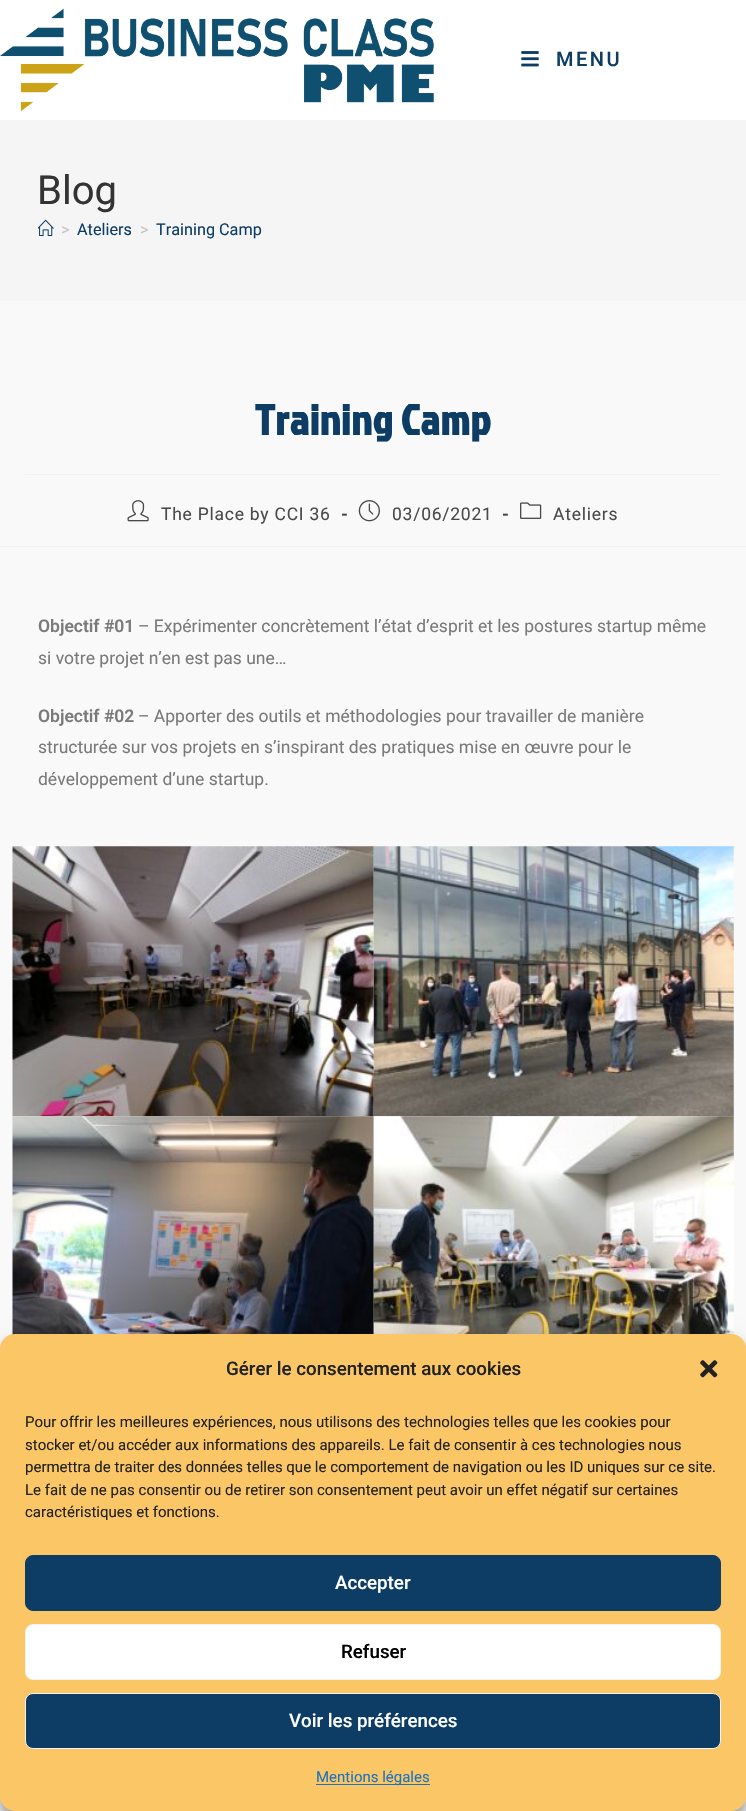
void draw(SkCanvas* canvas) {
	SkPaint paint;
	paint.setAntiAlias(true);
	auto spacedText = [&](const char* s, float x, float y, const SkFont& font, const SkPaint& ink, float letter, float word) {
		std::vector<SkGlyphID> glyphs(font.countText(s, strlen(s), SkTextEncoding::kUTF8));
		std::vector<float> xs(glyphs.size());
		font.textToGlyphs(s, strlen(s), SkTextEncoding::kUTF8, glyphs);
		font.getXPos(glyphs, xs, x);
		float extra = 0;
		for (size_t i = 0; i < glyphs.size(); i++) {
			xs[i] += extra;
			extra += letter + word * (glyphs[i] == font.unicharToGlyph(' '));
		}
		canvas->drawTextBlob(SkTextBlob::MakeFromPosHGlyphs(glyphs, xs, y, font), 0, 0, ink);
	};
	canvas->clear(0xfff9f9f9);
	paint.setColor(0xffffffff);
	canvas->drawRect(SkRect::MakeXYWH(0, 0, 746, 120), paint);
	canvas->drawImageRect(SkImages::DeferredFromEncodedData(SkData::MakeFromFileName("img1.png")), SkRect::MakeXYWH(0, 8, 434, 104), SkSamplingOptions());
	canvas->drawImageRect(SkImages::DeferredFromEncodedData(SkData::MakeFromFileName("img2.png")), SkRect::MakeXYWH(521, 51, 18, 16), SkSamplingOptions());
	SkFont f1(fontMgr->matchFamilyStyle("Roboto", SkFontStyle(500, SkFontStyle::kNormal_Width, SkFontStyle::kUpright_Slant)), 20);
	f1.setSubpixel(true);
	paint.setColor(0xff0d3d65);
	spacedText("MENU", 556, 66, f1, paint, 2.5, 0);
	paint.setColor(0xfff5f5f5);
	canvas->drawRect(SkRect::MakeXYWH(0, 120, 746, 181), paint);
	SkFont f2(fontMgr->matchFamilyStyle("Roboto", SkFontStyle::Normal()), 40);
	f2.setSubpixel(true);
	paint.setColor(0xff333333);
	canvas->drawString("Blog", 37, 204, f2, paint);
	canvas->drawImageRect(SkImages::DeferredFromEncodedData(SkData::MakeFromFileName("img3.png")), SkRect::MakeXYWH(38, 219, 16, 17), SkSamplingOptions());
	SkFont f3(fontMgr->matchFamilyStyle("Roboto", SkFontStyle::Normal()), 16.25);
	f3.setSubpixel(true);
	paint.setColor(0xffc6c6c6);
	canvas->drawString(">", 61, 235, f3, paint);
	paint.setColor(0xff0d3d65);
	canvas->drawString("Ateliers", 77, 235, f3, paint);
	paint.setColor(0xffc6c6c6);
	canvas->drawString(">", 140, 235, f3, paint);
	paint.setColor(0xff0d3d65);
	canvas->drawString("Training Camp", 156, 235, f3, paint);
	paint.setColor(0xfff1f1f1);
	canvas->drawRect(SkRect::MakeXYWH(25, 474, 696, 1), paint);
	SkFont f4(fontMgr->matchFamilyStyle("Jockey One", SkFontStyle::Bold()), 42.5);
	f4.setSubpixel(true);
	paint.setColor(0xff0d3d65);
	spacedText("Training Camp", 255, 435, f4, paint, 0.75, 0);
	paint.setColor(0xfff1f1f1);
	canvas->drawRect(SkRect::MakeXYWH(0, 546, 746, 1), paint);
	canvas->drawImageRect(SkImages::DeferredFromEncodedData(SkData::MakeFromFileName("img4.png")), SkRect::MakeXYWH(127, 500, 22, 22), SkSamplingOptions());
	SkFont f5(fontMgr->matchFamilyStyle("Roboto", SkFontStyle::Normal()), 17.5);
	f5.setSubpixel(true);
	paint.setColor(0xff4a4a4a);
	spacedText("The Place by CCI 36", 161, 520, f5, paint, 0.75, 0);
	SkFont f6(fontMgr->matchFamilyStyle("Roboto", SkFontStyle::Bold()), 17.5);
	f6.setSubpixel(true);
	spacedText("-", 341, 520, f6, paint, 0.75, 0);
	canvas->drawImageRect(SkImages::DeferredFromEncodedData(SkData::MakeFromFileName("img5.png")), SkRect::MakeXYWH(358, 500, 22, 22), SkSamplingOptions());
	spacedText("03/06/2021", 392, 520, f5, paint, 0.75, 0);
	spacedText("-", 502, 520, f6, paint, 0.75, 0);
	canvas->drawImageRect(SkImages::DeferredFromEncodedData(SkData::MakeFromFileName("img6.png")), SkRect::MakeXYWH(520, 502, 22, 17), SkSamplingOptions());
	spacedText("Ateliers", 553, 520, f5, paint, 0.75, 0);
	SkFont f7(fontMgr->matchFamilyStyle("Roboto", SkFontStyle(600, SkFontStyle::kNormal_Width, SkFontStyle::kUpright_Slant)), 17.5);
	f7.setSubpixel(true);
	paint.setColor(0xff7a7a7a);
	canvas->drawString("Objectif #01", 38, 632, f7, paint);
	canvas->drawString("– Expérimenter concrètement l’état d’esprit et les postures startup même", 138, 632, f5, paint);
	canvas->drawString("si votre projet n’en est pas une…", 38, 664, f5, paint);
	canvas->drawString("Objectif #02", 38, 722, f7, paint);
	canvas->drawString("– Apporter des outils et méthodologies pour travailler de manière", 138, 722, f5, paint);
	canvas->drawString("structurée sur vos projets en s’inspirant des pratiques mise en œuvre pour le", 38, 753, f5, paint);
	canvas->drawString("développement d’une startup.", 38, 785, f5, paint);
	canvas->drawImageRect(SkImages::DeferredFromEncodedData(SkData::MakeFromFileName("img7.png")), SkRect::MakeXYWH(12, 846, 362, 271), SkSamplingOptions());
	canvas->drawImageRect(SkImages::DeferredFromEncodedData(SkData::MakeFromFileName("img8.png")), SkRect::MakeXYWH(373, 846, 361, 271), SkSamplingOptions());
	canvas->drawImageRect(SkImages::DeferredFromEncodedData(SkData::MakeFromFileName("img9.png")), SkRect::MakeXYWH(12, 1116, 362, 219), SkSamplingOptions());
	canvas->drawImageRect(SkImages::DeferredFromEncodedData(SkData::MakeFromFileName("img10.png")), SkRect::MakeXYWH(373, 1116, 361, 219), SkSamplingOptions());
	paint.setColor(0x3b000000);
	paint.setMaskFilter(SkMaskFilter::MakeBlur(kNormal_SkBlurStyle, 4));
	canvas->drawRoundRect(SkRect::MakeXYWH(0, 1341, 746, 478), 15, 15, paint);
	paint.setMaskFilter(nullptr);
	paint.setColor(0x30000000);
	paint.setMaskFilter(SkMaskFilter::MakeBlur(kNormal_SkBlurStyle, 12.5));
	canvas->drawRoundRect(SkRect::MakeXYWH(0, 1346, 746, 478), 15, 15, paint);
	paint.setMaskFilter(nullptr);
	paint.setColor(0xfffbc666);
	canvas->drawRoundRect(SkRect::MakeXYWH(0, 1334, 746, 477), 15, 15, paint);
	SkFont f8(fontMgr->matchFamilyStyle("Roboto", SkFontStyle(500, SkFontStyle::kNormal_Width, SkFontStyle::kUpright_Slant)), 18.75);
	f8.setSubpixel(true);
	paint.setColor(0xff222222);
	canvas->drawString("Gérer le consentement aux cookies", 226, 1375, f8, paint);
	canvas->drawImageRect(SkImages::DeferredFromEncodedData(SkData::MakeFromFileName("img11.png")), SkRect::MakeXYWH(700, 1360, 18, 18), SkSamplingOptions());
	SkFont f9(fontMgr->matchFamilyStyle("Roboto", SkFontStyle::Normal()), 15);
	f9.setSubpixel(true);
	canvas->drawString("Pour offrir les meilleures expériences, nous utilisons des technologies telles que les cookies pour", 25, 1427, f9, paint);
	canvas->drawString("stocker et/ou accéder aux informations des appareils. Le fait de consentir à ces technologies nous", 25, 1450, f9, paint);
	canvas->drawString("permettra de traiter des données telles que le comportement de navigation ou les ID uniques sur ce site.", 25, 1472, f9, paint);
	canvas->drawString("Le fait de ne pas consentir ou de retirer son consentement peut avoir un effet négatif sur certaines", 25, 1495, f9, paint);
	canvas->drawString("caractéristiques et fonctions.", 25, 1517, f9, paint);
	paint.setColor(0xff0d3d65);
	canvas->drawRoundRect(SkRect::MakeXYWH(25.5, 1555.5, 695, 55), 7.5, 7.5, paint);
	paint.setStroke(true);
	paint.setStrokeWidth(1);
	canvas->drawRoundRect(SkRect::MakeXYWH(25.5, 1555.5, 695, 55), 7.5, 7.5, paint);
	paint.setStroke(false);
	paint.setColor(0xffffffff);
	canvas->drawString("Accepter", 335, 1589, f8, paint);
	canvas->drawRoundRect(SkRect::MakeXYWH(25.5, 1624.5, 695, 55), 7.5, 7.5, paint);
	paint.setStroke(true);
	paint.setColor(0xfff2f2f2);
	canvas->drawRoundRect(SkRect::MakeXYWH(25.5, 1624.5, 695, 55), 7.5, 7.5, paint);
	paint.setStroke(false);
	paint.setColor(0xff000000);
	canvas->drawString("Refuser", 341, 1658, f8, paint);
	paint.setColor(0xff0d3d65);
	canvas->drawRoundRect(SkRect::MakeXYWH(25.5, 1693.5, 695, 55), 7.5, 7.5, paint);
	paint.setStroke(true);
	paint.setColor(0xfff2f2f2);
	canvas->drawRoundRect(SkRect::MakeXYWH(25.5, 1693.5, 695, 55), 7.5, 7.5, paint);
	paint.setStroke(false);
	paint.setColor(0xffffffff);
	canvas->drawString("Voir les préférences", 289, 1727, f8, paint);
	paint.setColor(0xff1e73be);
	canvas->drawRect(SkRect::MakeXYWH(316, 1784, 114, 1), paint);
	canvas->drawString("Mentions légales", 316, 1782, f9, paint);
}
